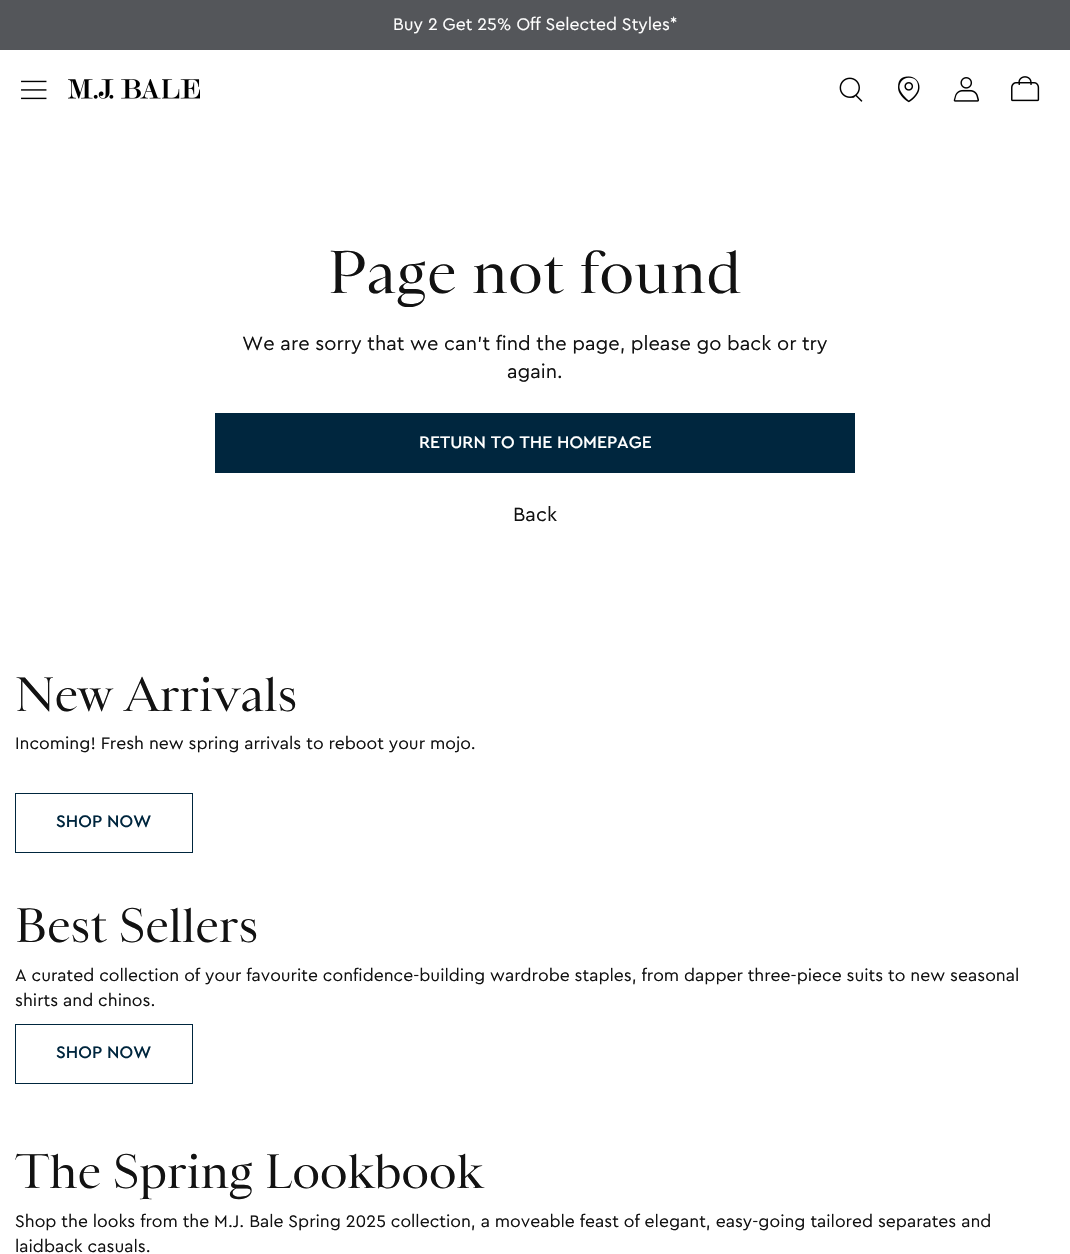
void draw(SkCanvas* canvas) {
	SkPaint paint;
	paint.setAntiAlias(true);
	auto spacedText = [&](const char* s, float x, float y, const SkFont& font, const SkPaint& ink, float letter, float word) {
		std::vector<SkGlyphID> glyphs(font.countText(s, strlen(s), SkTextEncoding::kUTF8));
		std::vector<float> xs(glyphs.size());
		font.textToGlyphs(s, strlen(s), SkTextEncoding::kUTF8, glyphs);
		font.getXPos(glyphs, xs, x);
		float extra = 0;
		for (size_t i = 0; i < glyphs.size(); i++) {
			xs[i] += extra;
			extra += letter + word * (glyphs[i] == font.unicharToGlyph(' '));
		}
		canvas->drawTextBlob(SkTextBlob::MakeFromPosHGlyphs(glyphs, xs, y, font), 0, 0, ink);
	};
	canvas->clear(0xffffffff);
	paint.setColor(0xff54565a);
	canvas->drawRect(SkRect::MakeXYWH(0, 0, 1070, 50), paint);
	SkFont f1(fontMgr->matchFamilyStyle("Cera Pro", SkFontStyle::Normal()), 17.5);
	f1.setSubpixel(true);
	paint.setColor(0xffffffff);
	canvas->drawString("Buy 2 Get 25% Off Selected Styles*", 393, 30, f1, paint);
	canvas->drawImageRect(SkImages::DeferredFromEncodedData(SkData::MakeFromFileName("img1.png")), SkRect::MakeXYWH(21, 80, 26, 20), SkSamplingOptions());
	canvas->drawImageRect(SkImages::DeferredFromEncodedData(SkData::MakeFromFileName("img2.png")), SkRect::MakeXYWH(68, 79, 132, 20), SkSamplingOptions());
	canvas->drawImageRect(SkImages::DeferredFromEncodedData(SkData::MakeFromFileName("img3.png")), SkRect::MakeXYWH(839, 77, 24, 25), SkSamplingOptions());
	canvas->drawImageRect(SkImages::DeferredFromEncodedData(SkData::MakeFromFileName("img4.png")), SkRect::MakeXYWH(898, 76, 22, 27), SkSamplingOptions());
	canvas->drawImageRect(SkImages::DeferredFromEncodedData(SkData::MakeFromFileName("img5.png")), SkRect::MakeXYWH(953, 77, 26, 25), SkSamplingOptions());
	canvas->drawImageRect(SkImages::DeferredFromEncodedData(SkData::MakeFromFileName("img6.png")), SkRect::MakeXYWH(1011, 76, 29, 26), SkSamplingOptions());
	SkFont f2(fontMgr->matchFamilyStyle("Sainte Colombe", SkFontStyle::Normal()), 56.25);
	f2.setSubpixel(true);
	paint.setColor(0xff121212);
	canvas->drawString("Page not found", 328, 293, f2, paint);
	SkFont f3(fontMgr->matchFamilyStyle("Cera Pro", SkFontStyle::Normal()), 20);
	f3.setSubpixel(true);
	canvas->drawString("We are sorry that we can’t find the page, please go back or try", 242, 350, f3, paint);
	canvas->drawString("again.", 507, 378, f3, paint);
	paint.setColor(0xff00263e);
	canvas->drawRect(SkRect::MakeXYWH(215, 413, 640, 60), paint);
	SkFont f4(fontMgr->matchFamilyStyle("Cera Pro", SkFontStyle(500, SkFontStyle::kNormal_Width, SkFontStyle::kUpright_Slant)), 17.5);
	f4.setSubpixel(true);
	paint.setColor(0xffffffff);
	canvas->drawString("RETURN TO THE HOMEPAGE", 419, 448, f4, paint);
	paint.setColor(0xff121212);
	canvas->drawString("Back", 513, 521, f3, paint);
	SkFont f5(fontMgr->matchFamilyStyle("Sainte Colombe", SkFontStyle::Normal()), 45);
	f5.setSubpixel(true);
	spacedText("New Arrivals", 15, 711, f5, paint, -0.4, 0);
	canvas->drawString("Incoming! Fresh new spring arrivals to reboot your mojo.", 15, 749, f1, paint);
	paint.setStroke(true);
	paint.setStrokeWidth(1);
	paint.setColor(0xff00263e);
	canvas->drawRect(SkRect::MakeXYWH(15.5, 793.5, 177, 59), paint);
	paint.setStroke(false);
	canvas->drawString("SHOP NOW", 56, 827, f4, paint);
	paint.setColor(0xff121212);
	spacedText("Best Sellers", 15, 942, f5, paint, -0.4, 0);
	canvas->drawString("A curated collection of your favourite confidence-building wardrobe staples, from dapper three-piece suits to new seasonal", 15, 981, f1, paint);
	canvas->drawString("shirts and chinos.", 15, 1006, f1, paint);
	paint.setStroke(true);
	paint.setColor(0xff00263e);
	canvas->drawRect(SkRect::MakeXYWH(15.5, 1024.5, 177, 59), paint);
	paint.setStroke(false);
	canvas->drawString("SHOP NOW", 56, 1058, f4, paint);
	paint.setColor(0xff121212);
	spacedText("The Spring Lookbook", 15, 1188, f5, paint, -0.4, 0);
	canvas->drawString("Shop the looks from the M.J. Bale Spring 2025 collection, a moveable feast of elegant, easy-going tailored separates and", 15, 1227, f1, paint);
	canvas->drawString("laidback casuals.", 15, 1252, f1, paint);
}
